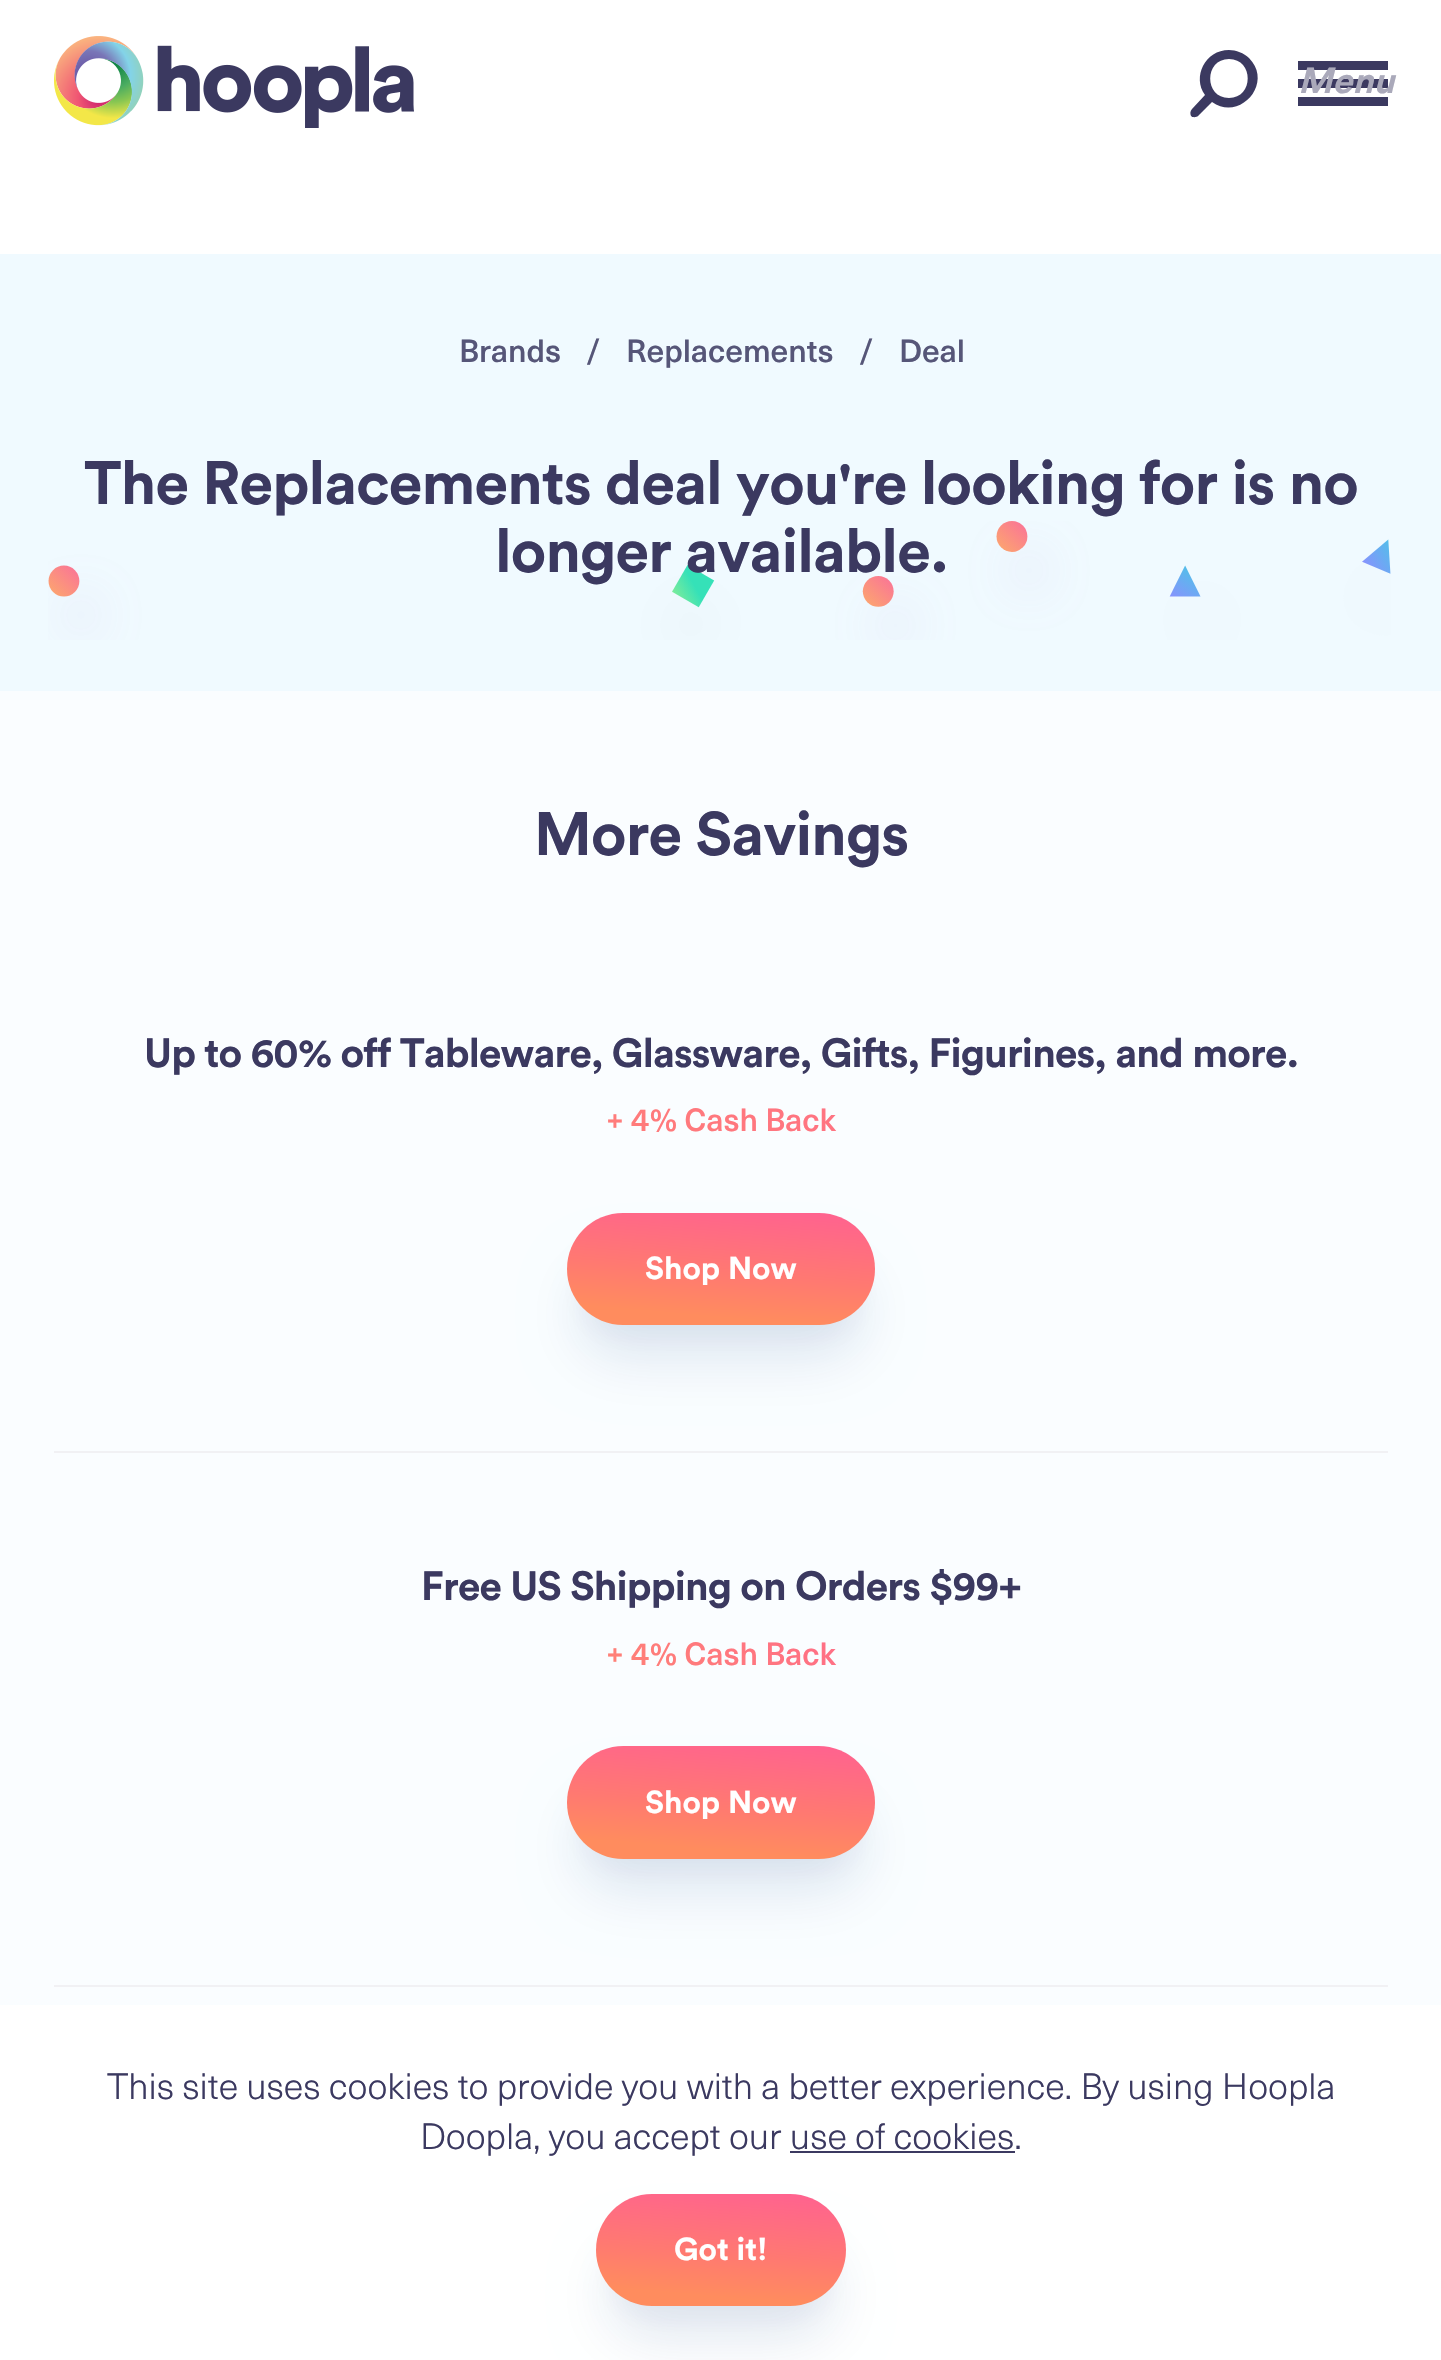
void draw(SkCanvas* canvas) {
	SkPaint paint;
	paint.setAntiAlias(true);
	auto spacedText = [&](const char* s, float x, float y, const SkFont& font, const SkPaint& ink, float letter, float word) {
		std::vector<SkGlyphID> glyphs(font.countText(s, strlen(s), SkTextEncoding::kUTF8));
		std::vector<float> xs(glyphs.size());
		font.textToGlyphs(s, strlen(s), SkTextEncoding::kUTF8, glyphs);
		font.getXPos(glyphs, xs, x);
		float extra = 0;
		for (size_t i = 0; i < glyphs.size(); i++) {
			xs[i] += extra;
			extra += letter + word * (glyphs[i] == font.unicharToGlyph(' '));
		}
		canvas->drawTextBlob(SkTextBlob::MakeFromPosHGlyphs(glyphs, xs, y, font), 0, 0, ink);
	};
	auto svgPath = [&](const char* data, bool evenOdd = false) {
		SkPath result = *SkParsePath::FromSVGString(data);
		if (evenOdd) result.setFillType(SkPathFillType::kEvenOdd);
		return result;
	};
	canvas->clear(0xffffffff);
	canvas->drawImageRect(SkImages::DeferredFromEncodedData(SkData::MakeFromFileName("img1.png")), SkRect::MakeXYWH(54, 36, 360, 92), SkSamplingOptions());
	paint.setColor(0xff3b3960);
	canvas->drawPath(svgPath("M1229 50C1236 50 1244 53 1249 58C1274 83 1240 122 1212 102L1198 116C1197 117 1193 118 1191 116C1190 114 1190 111 1192 109L1205 95C1192 77 1205 50 1229 50ZM1229 59C1204 59 1204 98 1229 98C1254 98 1254 59 1229 59Z"), paint);
	canvas->drawRect(SkRect::MakeXYWH(1298, 61, 90, 9), paint);
	canvas->drawRect(SkRect::MakeXYWH(1298, 79, 90, 9), paint);
	SkFont f1(fontMgr->matchFamilyStyle("Circular", SkFontStyle::BoldItalic()), 36);
	f1.setSubpixel(true);
	paint.setColor(0xffaaa9ba);
	canvas->drawString("Menu", 1298, 93, f1, paint);
	paint.setColor(0xff3b3960);
	canvas->drawRect(SkRect::MakeXYWH(1298, 97, 90, 9), paint);
	paint.setColor(0xfff0faff);
	canvas->drawRect(SkRect::MakeXYWH(0, 254, 1441, 437), paint);
	canvas->drawImageRect(SkImages::DeferredFromEncodedData(SkData::MakeFromFileName("img2.png")), SkRect::MakeXYWH(48, 521, 1343, 119), SkSamplingOptions());
	SkFont f2(fontMgr->matchFamilyStyle("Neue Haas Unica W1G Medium", SkFontStyle(500, SkFontStyle::kNormal_Width, SkFontStyle::kUpright_Slant)), 31.5);
	f2.setSubpixel(true);
	paint.setColor(0xff565678);
	canvas->drawString("Brands", 459, 362, f2, paint);
	canvas->drawString("/", 586, 362, f2, paint);
	canvas->drawString("Replacements", 626, 362, f2, paint);
	canvas->drawString("/", 859, 362, f2, paint);
	canvas->drawString("Deal", 899, 362, f2, paint);
	SkFont f3(fontMgr->matchFamilyStyle("Circular", SkFontStyle::Bold()), 60.75);
	f3.setSubpixel(true);
	paint.setColor(0xff3b3960);
	spacedText("The Replacements deal you're looking for is no", 84, 504, f3, paint, -0.85, 0);
	spacedText("longer available.", 495, 572, f3, paint, -0.85, 0);
	paint.setColor(0xfffafdff);
	canvas->drawRect(SkRect::MakeXYWH(0, 691, 1441, 1314), paint);
	paint.setColor(0xff3b3960);
	spacedText("More Savings", 534, 855, f3, paint, -0.85, 0);
	paint.setColor(0xfff1f1f4);
	canvas->drawRect(SkRect::MakeXYWH(54, 1451, 1334, 2), paint);
	SkFont f4(fontMgr->matchFamilyStyle("Circular", SkFontStyle::Bold()), 40.5);
	f4.setSubpixel(true);
	paint.setColor(0xff3b3960);
	spacedText("Up to 60% off Tableware, Glassware, Gifts, Figurines, and more.", 144, 1067, f4, paint, -0.85, 0);
	{
		const SkColor colors[] = {0xffff8f6b, 0xffff6191};
		const float stops[] = {0, 1};
		const SkPoint ends[] = {{411, 1419}, {1031, 820}};
		paint.setShader(SkGradientShader::MakeLinear(ends, colors, stops, 2, SkTileMode::kClamp));
		paint.setAlpha(255);
	}
	canvas->drawString("+ 4% Cash Back", 606, 1131, f2, paint);
	paint.setShader(nullptr);
	paint.setColor(0x0a002877);
	paint.setMaskFilter(SkMaskFilter::MakeBlur(kNormal_SkBlurStyle, 11));
	canvas->drawRoundRect(SkRect::MakeXYWH(578, 1247, 286, 90), 45, 45, paint);
	paint.setMaskFilter(nullptr);
	paint.setColor(0x1a002877);
	paint.setMaskFilter(SkMaskFilter::MakeBlur(kNormal_SkBlurStyle, 28));
	canvas->drawRoundRect(SkRect::MakeXYWH(578, 1269, 286, 90), 45, 45, paint);
	paint.setMaskFilter(nullptr);
	{
		const SkColor colors[] = {0xffff8c5e, 0xffff7971, 0xffff6191};
		const float stops[] = {0.15, 0.47, 1};
		const SkPoint ends[] = {{715, 1338}, {727, 1200}};
		paint.setShader(SkGradientShader::MakeLinear(ends, colors, stops, 3, SkTileMode::kClamp));
		paint.setAlpha(255);
	}
	canvas->drawRoundRect(SkRect::MakeXYWH(567, 1213, 308, 112), 56, 56, paint);
	SkFont f5(fontMgr->matchFamilyStyle("Circular", SkFontStyle::Bold()), 31.5);
	f5.setSubpixel(true);
	paint.setShader(nullptr);
	paint.setColor(0xffffffff);
	canvas->drawString("Shop Now", 645, 1279, f5, paint);
	paint.setColor(0xfff1f1f4);
	canvas->drawRect(SkRect::MakeXYWH(54, 1985, 1334, 2), paint);
	paint.setColor(0xff3b3960);
	spacedText("Free US Shipping on Orders $99+", 421, 1600, f4, paint, -0.85, 0);
	{
		const SkColor colors[] = {0xffff8f6b, 0xffff6191};
		const float stops[] = {0, 1};
		const SkPoint ends[] = {{555, 1813}, {887, 1492}};
		paint.setShader(SkGradientShader::MakeLinear(ends, colors, stops, 2, SkTileMode::kClamp));
		paint.setAlpha(255);
	}
	canvas->drawString("+ 4% Cash Back", 606, 1665, f2, paint);
	paint.setShader(nullptr);
	paint.setColor(0x0a002877);
	paint.setMaskFilter(SkMaskFilter::MakeBlur(kNormal_SkBlurStyle, 11));
	canvas->drawRoundRect(SkRect::MakeXYWH(578, 1780, 286, 90), 45, 45, paint);
	paint.setMaskFilter(nullptr);
	paint.setColor(0x1a002877);
	paint.setMaskFilter(SkMaskFilter::MakeBlur(kNormal_SkBlurStyle, 28));
	canvas->drawRoundRect(SkRect::MakeXYWH(578, 1802, 286, 90), 45, 45, paint);
	paint.setMaskFilter(nullptr);
	{
		const SkColor colors[] = {0xffff8c5e, 0xffff7971, 0xffff6191};
		const float stops[] = {0.15, 0.47, 1};
		const SkPoint ends[] = {{715, 1871}, {727, 1733}};
		paint.setShader(SkGradientShader::MakeLinear(ends, colors, stops, 3, SkTileMode::kClamp));
		paint.setAlpha(255);
	}
	canvas->drawRoundRect(SkRect::MakeXYWH(567, 1746, 308, 113), 56.5, 56.5, paint);
	paint.setShader(nullptr);
	paint.setColor(0xffffffff);
	canvas->drawString("Shop Now", 645, 1813, f5, paint);
	SkFont f6(fontMgr->matchFamilyStyle("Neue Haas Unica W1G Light", SkFontStyle(300, SkFontStyle::kNormal_Width, SkFontStyle::kUpright_Slant)), 36);
	f6.setSubpixel(true);
	paint.setColor(0xff3b3960);
	canvas->drawString("This site uses cookies to provide you with a better experience. By using Hoopla", 107, 2099, f6, paint);
	canvas->drawString("Doopla, you accept our use of cookies.", 420, 2149, f6, paint);
	canvas->drawRect(SkRect::MakeXYWH(790, 2151, 225, 2), paint);
	paint.setColor(0x0a002877);
	paint.setMaskFilter(SkMaskFilter::MakeBlur(kNormal_SkBlurStyle, 11));
	canvas->drawRoundRect(SkRect::MakeXYWH(608, 2228, 227, 90), 45, 45, paint);
	paint.setMaskFilter(nullptr);
	paint.setColor(0x1a002877);
	paint.setMaskFilter(SkMaskFilter::MakeBlur(kNormal_SkBlurStyle, 28));
	canvas->drawRoundRect(SkRect::MakeXYWH(608, 2250, 227, 90), 45, 45, paint);
	paint.setMaskFilter(nullptr);
	{
		const SkColor colors[] = {0xffff8c5e, 0xffff7971, 0xffff6191};
		const float stops[] = {0.15, 0.47, 1};
		const SkPoint ends[] = {{715, 2317}, {727, 2183}};
		paint.setShader(SkGradientShader::MakeLinear(ends, colors, stops, 3, SkTileMode::kClamp));
		paint.setAlpha(255);
	}
	canvas->drawRoundRect(SkRect::MakeXYWH(596, 2194, 250, 112), 56, 56, paint);
	paint.setShader(nullptr);
	paint.setColor(0xffffffff);
	canvas->drawString("Got it!", 674, 2260, f5, paint);
}
